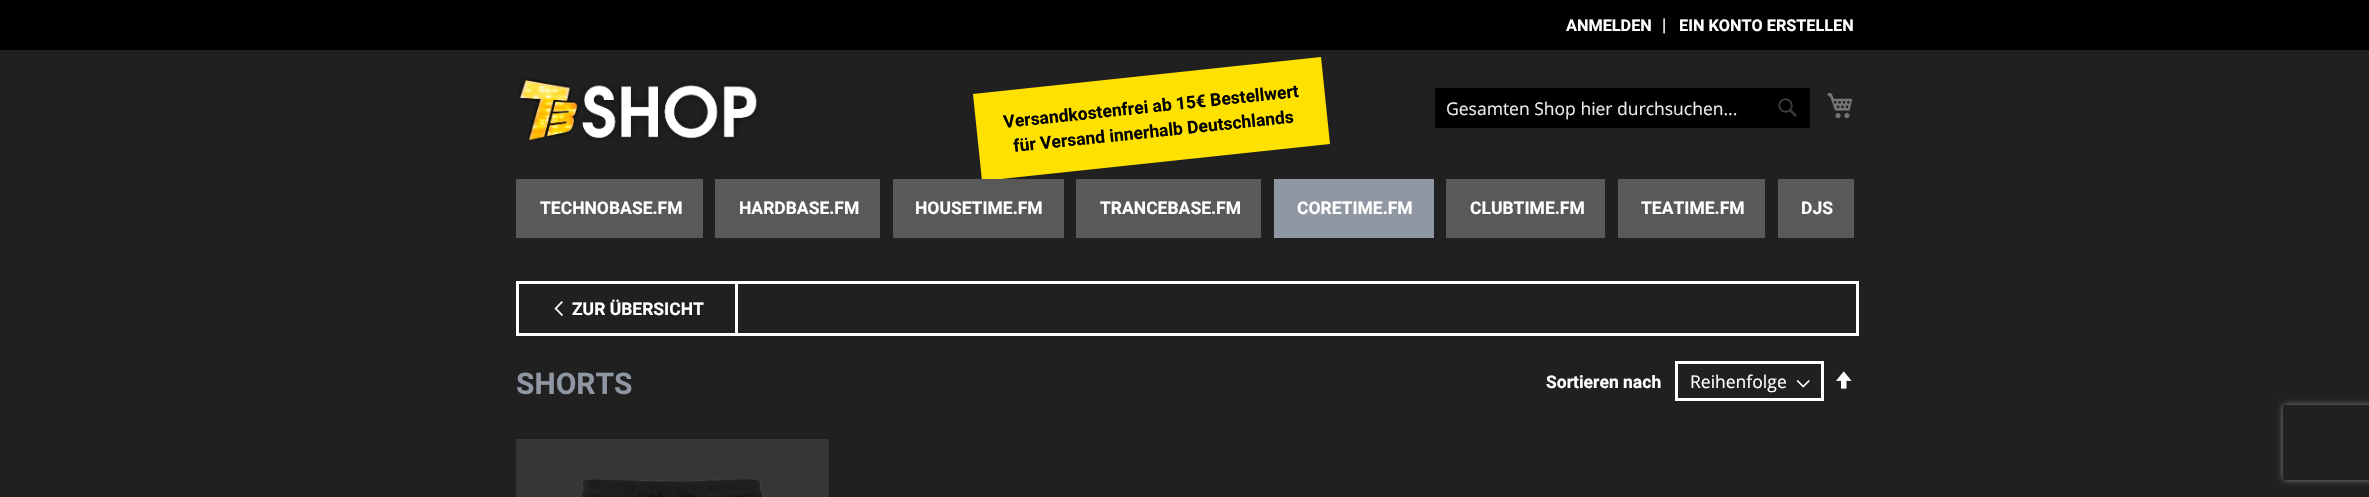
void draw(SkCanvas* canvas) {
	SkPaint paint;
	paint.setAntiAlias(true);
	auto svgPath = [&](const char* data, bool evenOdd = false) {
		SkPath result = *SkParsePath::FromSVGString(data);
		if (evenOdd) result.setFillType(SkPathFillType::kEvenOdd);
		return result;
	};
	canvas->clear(0xff202020);
	paint.setColor(0xff000000);
	canvas->drawRect(SkRect::MakeXYWH(0, 0, 2369, 50), paint);
	SkFont f1(fontMgr->matchFamilyStyle("Roboto", SkFontStyle::Bold()), 16.25);
	f1.setSubpixel(true);
	paint.setColor(0xffffffff);
	canvas->drawString("ANMELDEN", 1566, 31, f1, paint);
	SkFont f2(fontMgr->matchFamilyStyle("Roboto", SkFontStyle::Normal()), 17.5);
	f2.setSubpixel(true);
	canvas->drawString("|", 1662, 31, f2, paint);
	canvas->drawString("EIN KONTO ERSTELLEN", 1679, 31, f1, paint);
	canvas->drawImageRect(SkImages::DeferredFromEncodedData(SkData::MakeFromFileName("img1.png")), SkRect::MakeXYWH(518, 78, 243, 64), SkSamplingOptions());
	paint.setColor(0xffffe100);
	canvas->drawPath(svgPath("M973 94L1321 57L1330 144L982 181Z"), paint);
	SkFont f3(fontMgr->matchFamilyStyle("Roboto", SkFontStyle::Bold()), 17.5);
	f3.setSubpixel(true);
	paint.setColor(0xff000000);
	canvas->save();
	canvas->rotate(-6, 1004, 128);
	canvas->drawString("Versandkostenfrei ab 15€ Bestellwert", 1004, 128, f3, paint);
	canvas->restore();
	canvas->save();
	canvas->rotate(-6, 1014, 152);
	canvas->drawString("für Versand innerhalb Deutschlands", 1014, 152, f3, paint);
	canvas->restore();
	canvas->drawRoundRect(SkRect::MakeXYWH(1435, 88, 375, 40), 1, 1, paint);
	SkFont f4(fontMgr->matchFamilyStyle("Open Sans", SkFontStyle::Normal()), 17.5);
	f4.setSubpixel(true);
	paint.setColor(0xffe9e9e9);
	canvas->drawString("Gesamten Shop hier durchsuchen...", 1446, 115, f4, paint);
	canvas->drawImageRect(SkImages::DeferredFromEncodedData(SkData::MakeFromFileName("img2.png")), SkRect::MakeXYWH(1778, 98, 19, 19), SkSamplingOptions());
	canvas->drawImageRect(SkImages::DeferredFromEncodedData(SkData::MakeFromFileName("img3.png")), SkRect::MakeXYWH(1827, 92, 26, 27), SkSamplingOptions());
	paint.setColor(0xff595959);
	canvas->drawRect(SkRect::MakeXYWH(516, 179, 187, 59), paint);
	paint.setColor(0xffffffff);
	canvas->drawString("TECHNOBASE.FM", 540, 214, f3, paint);
	paint.setColor(0xff595959);
	canvas->drawRect(SkRect::MakeXYWH(715, 179, 165, 59), paint);
	paint.setColor(0xffffffff);
	canvas->drawString("HARDBASE.FM", 739, 214, f3, paint);
	paint.setColor(0xff595959);
	canvas->drawRect(SkRect::MakeXYWH(893, 179, 171, 59), paint);
	paint.setColor(0xffffffff);
	canvas->drawString("HOUSETIME.FM", 915, 214, f3, paint);
	paint.setColor(0xff595959);
	canvas->drawRect(SkRect::MakeXYWH(1076, 179, 185, 59), paint);
	paint.setColor(0xffffffff);
	canvas->drawString("TRANCEBASE.FM", 1100, 214, f3, paint);
	paint.setColor(0xff8e97a2);
	canvas->drawRect(SkRect::MakeXYWH(1274, 179, 160, 59), paint);
	paint.setColor(0xffffffff);
	canvas->drawString("CORETIME.FM", 1297, 214, f3, paint);
	paint.setColor(0xff595959);
	canvas->drawRect(SkRect::MakeXYWH(1446, 179, 159, 59), paint);
	paint.setColor(0xffffffff);
	canvas->drawString("CLUBTIME.FM", 1470, 214, f3, paint);
	paint.setColor(0xff595959);
	canvas->drawRect(SkRect::MakeXYWH(1618, 179, 147, 59), paint);
	paint.setColor(0xffffffff);
	canvas->drawString("TEATIME.FM", 1641, 214, f3, paint);
	paint.setColor(0xff595959);
	canvas->drawRect(SkRect::MakeXYWH(1778, 179, 76, 59), paint);
	paint.setColor(0xffffffff);
	canvas->drawString("DJS", 1801, 214, f3, paint);
	paint.setStroke(true);
	paint.setStrokeWidth(3);
	canvas->drawRect(SkRect::MakeXYWH(517.5, 282.5, 1340, 52), paint);
	paint.setStroke(false);
	canvas->drawRect(SkRect::MakeXYWH(735, 284, 3, 50), paint);
	canvas->drawImageRect(SkImages::DeferredFromEncodedData(SkData::MakeFromFileName("img4.png")), SkRect::MakeXYWH(554, 301, 9, 16), SkSamplingOptions());
	canvas->drawString("ZUR ÜBERSICHT", 572, 315, f3, paint);
	SkFont f5(fontMgr->matchFamilyStyle("Roboto", SkFontStyle::Bold()), 30);
	f5.setSubpixel(true);
	paint.setColor(0xff8e97a2);
	canvas->drawString("SHORTS", 516, 394, f5, paint);
	paint.setColor(0xffffffff);
	canvas->drawString("Sortieren nach", 1546, 388, f3, paint);
	canvas->drawImageRect(SkImages::DeferredFromEncodedData(SkData::MakeFromFileName("img5.png")), SkRect::MakeXYWH(1796, 379, 14, 9), SkSamplingOptions());
	paint.setStroke(true);
	canvas->drawRect(SkRect::MakeXYWH(1676.5, 362.5, 146, 37), paint);
	paint.setStroke(false);
	canvas->drawString("Reihenfolge", 1690, 388, f4, paint);
	canvas->drawImageRect(SkImages::DeferredFromEncodedData(SkData::MakeFromFileName("img6.png")), SkRect::MakeXYWH(1836, 371, 16, 18), SkSamplingOptions());
	paint.setColor(0xff363636);
	canvas->drawRect(SkRect::MakeXYWH(516, 439, 313, 58), paint);
	canvas->drawImageRect(SkImages::DeferredFromEncodedData(SkData::MakeFromFileName("img7.png")), SkRect::MakeXYWH(582, 478, 181, 19), SkSamplingOptions());
	canvas->save();
	canvas->clipPath(svgPath("M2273 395H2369V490H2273ZM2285.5 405H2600.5C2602 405 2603 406 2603 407.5V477.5C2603 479 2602 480 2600.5 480H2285.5C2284 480 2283 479 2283 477.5V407.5C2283 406 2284 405 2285.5 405Z", true), true);
	paint.setColor(0xff808080);
	paint.setMaskFilter(SkMaskFilter::MakeBlur(kNormal_SkBlurStyle, 3));
	canvas->drawRoundRect(SkRect::MakeXYWH(2283, 405, 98, 75), 2.5, 2.5, paint);
	paint.setMaskFilter(nullptr);
	canvas->restore();
}
